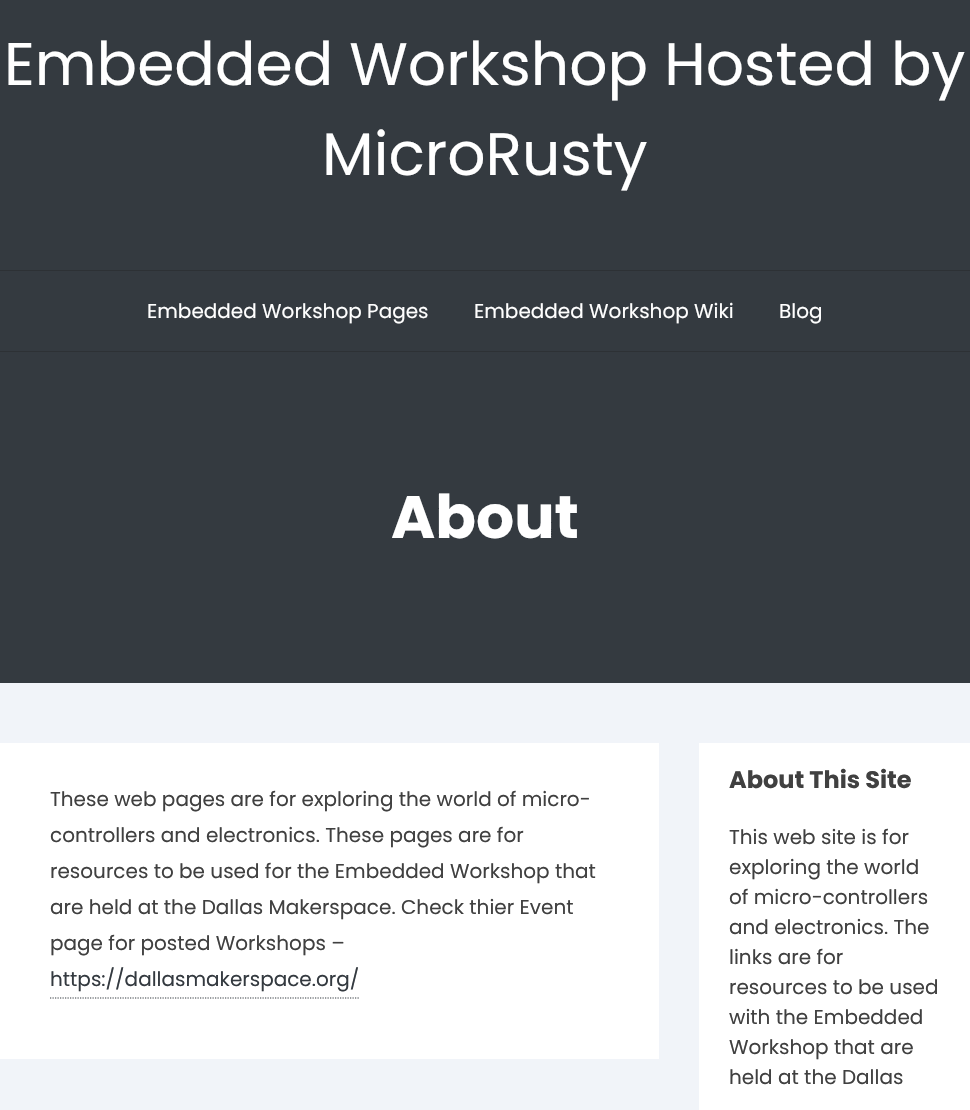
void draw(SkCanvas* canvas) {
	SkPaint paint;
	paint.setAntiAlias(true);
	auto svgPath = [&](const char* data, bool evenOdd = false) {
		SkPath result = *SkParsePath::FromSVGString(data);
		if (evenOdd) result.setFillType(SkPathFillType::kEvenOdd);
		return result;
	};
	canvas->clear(0xfff1f4f9);
	paint.setColor(0xff343a40);
	canvas->drawRect(SkRect::MakeXYWH(0, 0, 970, 683), paint);
	SkFont f1(fontMgr->matchFamilyStyle("Poppins", SkFontStyle::Normal()), 60);
	f1.setSubpixel(true);
	paint.setColor(0xffffffff);
	canvas->drawString("Embedded Workshop Hosted by", 4, 85, f1, paint);
	canvas->drawString("MicroRusty", 322, 175, f1, paint);
	paint.setColor(0xff2d3135);
	canvas->drawRect(SkRect::MakeXYWH(0, 270, 970, 1), paint);
	canvas->drawRect(SkRect::MakeXYWH(0, 351, 970, 1), paint);
	SkFont f2(fontMgr->matchFamilyStyle("Poppins", SkFontStyle::Normal()), 20);
	f2.setSubpixel(true);
	paint.setColor(0xffffffff);
	canvas->drawString("Embedded Workshop Pages", 147, 318, f2, paint);
	canvas->drawString("Embedded Workshop Wiki", 474, 318, f2, paint);
	canvas->drawString("Blog", 779, 318, f2, paint);
	SkFont f3(fontMgr->matchFamilyStyle("Poppins", SkFontStyle::Bold()), 60);
	f3.setSubpixel(true);
	canvas->drawString("About", 391, 538, f3, paint);
	canvas->drawRect(SkRect::MakeXYWH(0, 743, 659, 316), paint);
	paint.setColor(0xff404040);
	canvas->drawString("These web pages are for exploring the world of micro-", 50, 806, f2, paint);
	canvas->drawString("controllers and electronics. These pages are for", 50, 842, f2, paint);
	canvas->drawString("resources to be used for the Embedded Workshop that", 50, 878, f2, paint);
	canvas->drawString("are held at the Dallas Makerspace. Check thier Event", 50, 914, f2, paint);
	canvas->drawString("page for posted Workshops –", 50, 950, f2, paint);
	paint.setColor(0xff343a40);
	canvas->drawString("https://dallasmakerspace.org/", 50, 986, f2, paint);
	paint.setStroke(true);
	paint.setStrokeWidth(1.2);
	paint.setPathEffect(SkDashPathEffect::Make({{1.25f, 1.25f}}, 0));
	canvas->drawPath(svgPath("M50 998H359"), paint);
	paint.setPathEffect(nullptr);
	paint.setStroke(false);
	paint.setColor(0xffffffff);
	canvas->drawRect(SkRect::MakeXYWH(699, 743, 271, 367), paint);
	SkFont f4(fontMgr->matchFamilyStyle("Poppins", SkFontStyle::Bold()), 24);
	f4.setSubpixel(true);
	paint.setColor(0xff404040);
	canvas->drawString("About This Site", 729, 788, f4, paint);
	canvas->drawString("This web site is for", 729, 844, f2, paint);
	canvas->drawString("exploring the world", 729, 874, f2, paint);
	canvas->drawString("of micro-controllers", 729, 904, f2, paint);
	canvas->drawString("and electronics. The", 729, 934, f2, paint);
	canvas->drawString("links are for", 729, 964, f2, paint);
	canvas->drawString("resources to be used", 729, 994, f2, paint);
	canvas->drawString("with the Embedded", 729, 1024, f2, paint);
	canvas->drawString("Workshop that are", 729, 1054, f2, paint);
	canvas->drawString("held at the Dallas", 729, 1084, f2, paint);
}
